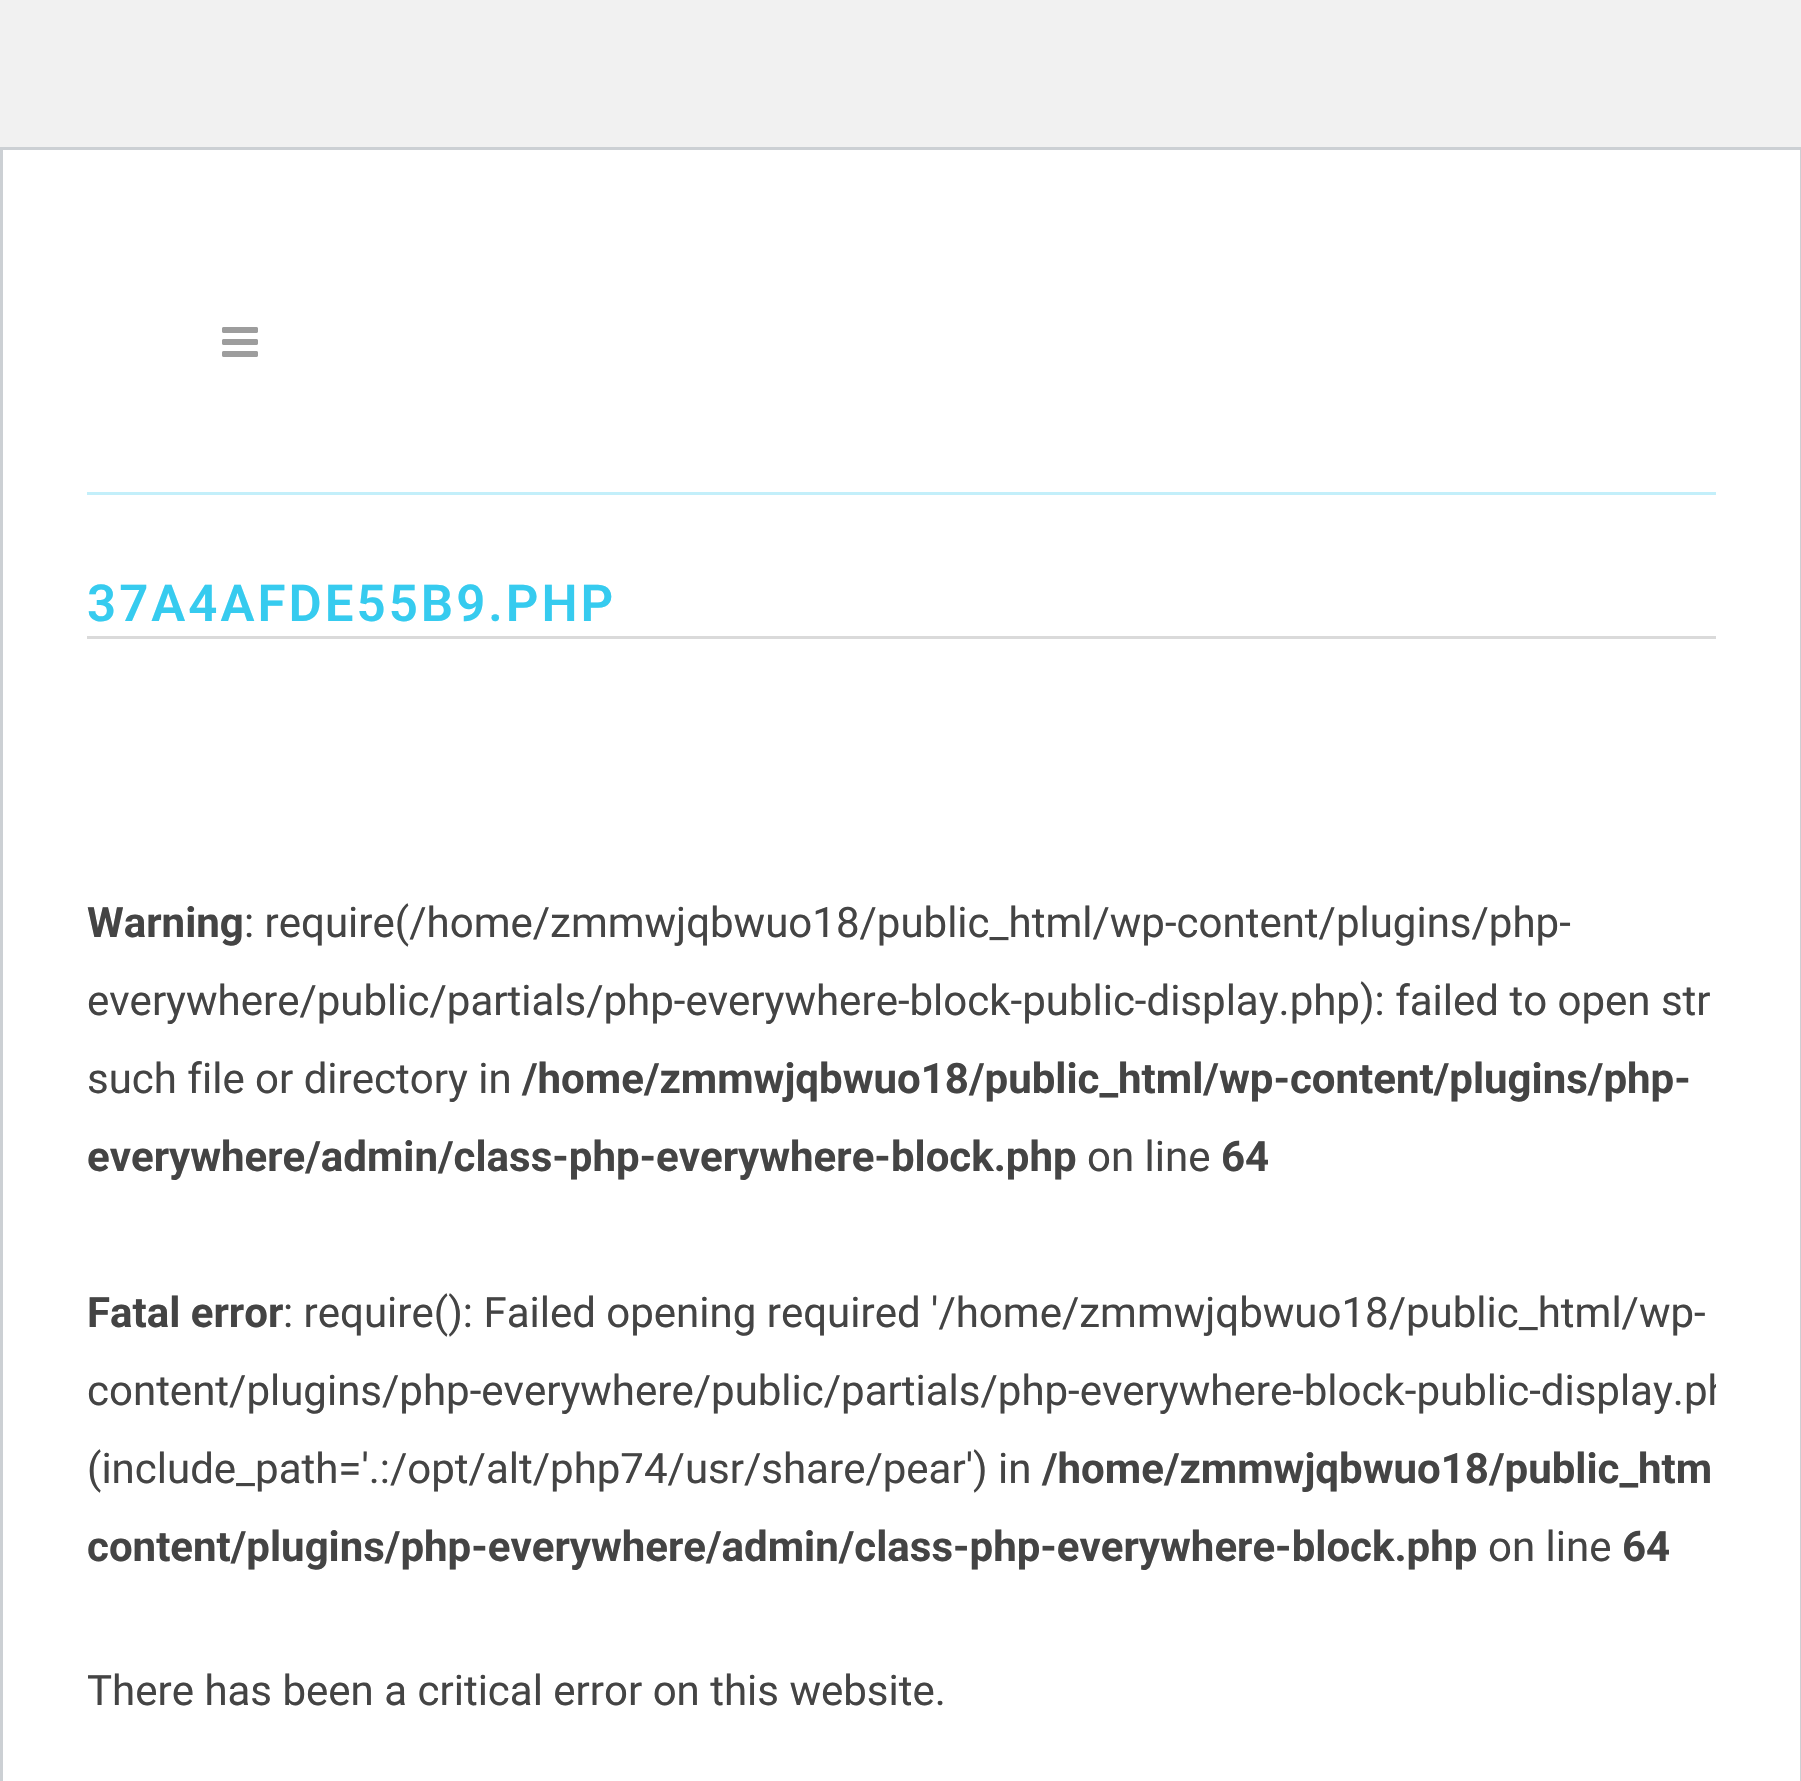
void draw(SkCanvas* canvas) {
	SkPaint paint;
	paint.setAntiAlias(true);
	auto spacedText = [&](const char* s, float x, float y, const SkFont& font, const SkPaint& ink, float letter, float word) {
		std::vector<SkGlyphID> glyphs(font.countText(s, strlen(s), SkTextEncoding::kUTF8));
		std::vector<float> xs(glyphs.size());
		font.textToGlyphs(s, strlen(s), SkTextEncoding::kUTF8, glyphs);
		font.getXPos(glyphs, xs, x);
		float extra = 0;
		for (size_t i = 0; i < glyphs.size(); i++) {
			xs[i] += extra;
			extra += letter + word * (glyphs[i] == font.unicharToGlyph(' '));
		}
		canvas->drawTextBlob(SkTextBlob::MakeFromPosHGlyphs(glyphs, xs, y, font), 0, 0, ink);
	};
	canvas->clear(0xfff1f1f1);
	paint.setColor(0xffffffff);
	canvas->drawRect(SkRect::MakeXYWH(1.5, 148.5, 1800, 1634), paint);
	paint.setStroke(true);
	paint.setStrokeWidth(3);
	paint.setColor(0xffccd0d4);
	canvas->drawRect(SkRect::MakeXYWH(1.5, 148.5, 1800, 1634), paint);
	paint.setStroke(false);
	paint.setColor(0xffc3effa);
	canvas->drawRect(SkRect::MakeXYWH(87, 492, 1629, 3), paint);
	canvas->drawImageRect(SkImages::DeferredFromEncodedData(SkData::MakeFromFileName("img1.png")), SkRect::MakeXYWH(222, 327, 36, 30), SkSamplingOptions());
	paint.setColor(0xffdadada);
	canvas->drawRect(SkRect::MakeXYWH(87, 636, 1629, 3), paint);
	SkFont f1(fontMgr->matchFamilyStyle("Roboto", SkFontStyle(600, SkFontStyle::kNormal_Width, SkFontStyle::kUpright_Slant)), 51);
	f1.setSubpixel(true);
	paint.setColor(0xff36cbef);
	spacedText("37A4AFDE55B9.PHP", 87, 621, f1, paint, 3, 0);
	SkFont f2(fontMgr->matchFamilyStyle("Roboto", SkFontStyle::Bold()), 42);
	f2.setSubpixel(true);
	paint.setColor(0xff444444);
	canvas->drawString("Warning", 87, 937, f2, paint);
	SkFont f3(fontMgr->matchFamilyStyle("Roboto", SkFontStyle::Normal()), 42);
	f3.setSubpixel(true);
	canvas->drawString(": require(/home/zmmwjqbwuo18/public_html/wp-content/plugins/php-", 244, 937, f3, paint);
	canvas->drawString("everywhere/public/partials/php-everywhere-block-public-display.php): failed to open str", 87, 1015, f3, paint);
	canvas->drawString("such file or directory in", 87, 1093, f3, paint);
	canvas->drawString("/home/zmmwjqbwuo18/public_html/wp-content/plugins/php-", 522, 1093, f2, paint);
	canvas->drawString("everywhere/admin/class-php-everywhere-block.php", 87, 1171, f2, paint);
	canvas->drawString("on line", 1087, 1171, f3, paint);
	canvas->drawString("64", 1221, 1171, f2, paint);
	canvas->drawString("Fatal error", 87, 1327, f2, paint);
	canvas->drawString(": require(): Failed opening required '/home/zmmwjqbwuo18/public_html/wp-", 283, 1327, f3, paint);
	canvas->save();
	canvas->clipRect(SkRect::MakeXYWH(87, 192, 1629, 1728));
	canvas->drawString("content/plugins/php-everywhere/public/partials/php-everywhere-block-public-display.ph", 87, 1405, f3, paint);
	canvas->restore();
	canvas->drawString("(include_path='.:/opt/alt/php74/usr/share/pear') in", 87, 1483, f3, paint);
	canvas->drawString("/home/zmmwjqbwuo18/public_htm", 1042, 1483, f2, paint);
	canvas->drawString("content/plugins/php-everywhere/admin/class-php-everywhere-block.php", 87, 1561, f2, paint);
	canvas->drawString("on line", 1488, 1561, f3, paint);
	canvas->drawString("64", 1622, 1561, f2, paint);
	canvas->drawString("There has been a critical error on this website.", 87, 1705, f3, paint);
}
